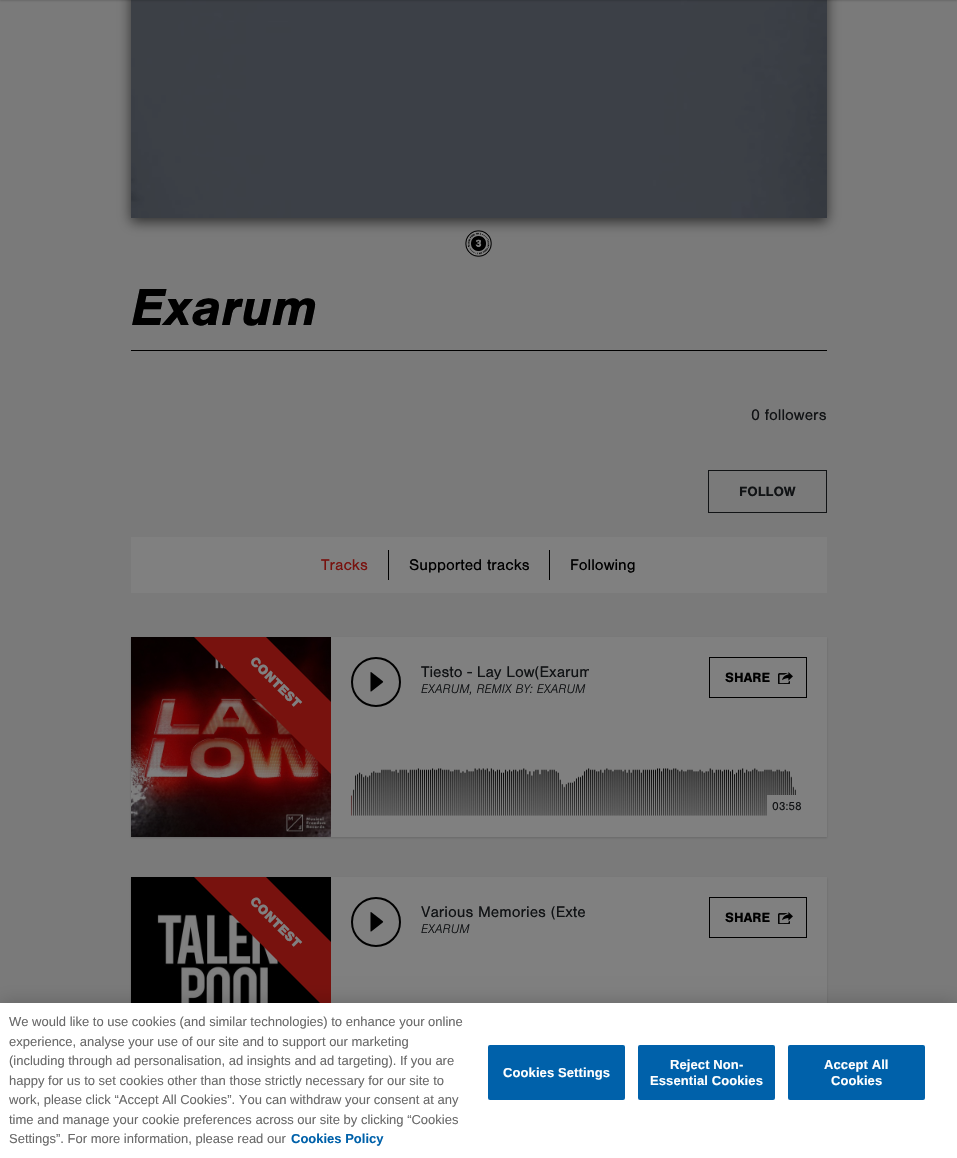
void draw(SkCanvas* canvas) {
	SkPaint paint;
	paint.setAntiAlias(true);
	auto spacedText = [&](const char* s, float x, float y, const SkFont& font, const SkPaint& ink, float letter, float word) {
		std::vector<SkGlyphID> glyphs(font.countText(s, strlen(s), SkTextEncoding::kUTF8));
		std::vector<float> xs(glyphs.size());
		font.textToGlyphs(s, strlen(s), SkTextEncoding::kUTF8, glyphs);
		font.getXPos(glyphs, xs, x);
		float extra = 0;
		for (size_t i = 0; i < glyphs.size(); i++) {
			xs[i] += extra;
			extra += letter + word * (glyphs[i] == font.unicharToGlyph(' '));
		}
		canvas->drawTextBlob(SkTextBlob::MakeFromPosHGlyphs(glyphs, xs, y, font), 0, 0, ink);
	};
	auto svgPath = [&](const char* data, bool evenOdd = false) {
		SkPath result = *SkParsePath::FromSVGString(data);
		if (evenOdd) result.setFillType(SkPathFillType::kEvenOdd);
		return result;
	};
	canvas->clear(0xff7a7a7a);
	paint.setColor(0x99000000);
	paint.setMaskFilter(SkMaskFilter::MakeBlur(kNormal_SkBlurStyle, 6));
	canvas->drawRect(SkRect::MakeXYWH(131, -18, 696, 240), paint);
	paint.setMaskFilter(nullptr);
	canvas->drawImageRect(SkImages::DeferredFromEncodedData(SkData::MakeFromFileName("img1.png")), SkRect::MakeXYWH(131, 0, 696, 218), SkSamplingOptions());
	paint.setColor(0x26000000);
	paint.setMaskFilter(SkMaskFilter::MakeBlur(kNormal_SkBlurStyle, 1));
	canvas->drawRect(SkRect::MakeXYWH(0, -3, 957, 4), paint);
	paint.setMaskFilter(nullptr);
	canvas->drawImageRect(SkImages::DeferredFromEncodedData(SkData::MakeFromFileName("img2.png")), SkRect::MakeXYWH(465, 230, 27, 27), SkSamplingOptions());
	paint.setColor(0xff000000);
	canvas->drawRect(SkRect::MakeXYWH(131, 350, 696, 1), paint);
	SkFont f1(fontMgr->matchFamilyStyle("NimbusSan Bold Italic", SkFontStyle::BoldItalic()), 54);
	f1.setSubpixel(true);
	canvas->drawString("Exarum", 131, 325, f1, paint);
	SkFont f2(fontMgr->matchFamilyStyle("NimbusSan", SkFontStyle::Normal()), 16);
	f2.setSubpixel(true);
	paint.setColor(0xff111315);
	canvas->drawString("0 followers", 751, 420, f2, paint);
	paint.setStroke(true);
	paint.setStrokeWidth(1);
	canvas->drawRect(SkRect::MakeXYWH(708.5, 470.5, 118, 42), paint);
	SkFont f3(fontMgr->matchFamilyStyle("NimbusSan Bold", SkFontStyle::Bold()), 14);
	f3.setSubpixel(true);
	paint.setStroke(false);
	canvas->drawString("FOLLOW", 739, 496, f3, paint);
	paint.setColor(0xff808080);
	canvas->drawRect(SkRect::MakeXYWH(131, 537, 696, 56), paint);
	paint.setColor(0xff000000);
	canvas->drawRect(SkRect::MakeXYWH(388, 550, 1, 30), paint);
	paint.setColor(0xff78120e);
	canvas->drawString("Tracks", 321, 570, f2, paint);
	paint.setColor(0xff000000);
	canvas->drawRect(SkRect::MakeXYWH(549, 550, 1, 30), paint);
	canvas->drawString("Supported tracks", 409, 570, f2, paint);
	canvas->drawString("Following", 570, 570, f2, paint);
	paint.setColor(0x26000000);
	paint.setMaskFilter(SkMaskFilter::MakeBlur(kNormal_SkBlurStyle, 1));
	canvas->drawRect(SkRect::MakeXYWH(131, 638, 696, 200), paint);
	paint.setMaskFilter(nullptr);
	paint.setColor(0xff808080);
	canvas->drawRect(SkRect::MakeXYWH(331, 637, 496, 200), paint);
	canvas->drawImageRect(SkImages::DeferredFromEncodedData(SkData::MakeFromFileName("img3.png")), SkRect::MakeXYWH(131, 637, 200, 200), SkSamplingOptions());
	canvas->save();
	canvas->clipRect(SkRect::MakeXYWH(131, 637, 200, 150));
	paint.setColor(0xff78120e);
	canvas->drawPath(svgPath("M205 576L382 753L346 789L169 612Z"), paint);
	canvas->restore();
	SkFont f4(fontMgr->matchFamilyStyle("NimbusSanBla", SkFontStyle::Normal()), 14);
	f4.setSubpixel(true);
	paint.setColor(0xff808080);
	canvas->save();
	canvas->rotate(45, 249, 662);
	canvas->drawString("CONTEST", 249, 662, f4, paint);
	canvas->restore();
	paint.setStroke(true);
	paint.setStrokeWidth(2);
	paint.setColor(0xff000000);
	canvas->drawCircle(376, 682, 24, paint);
	canvas->drawImageRect(SkImages::DeferredFromEncodedData(SkData::MakeFromFileName("img4.png")), SkRect::MakeXYWH(370, 672, 14, 20), SkSamplingOptions());
	canvas->save();
	canvas->clipRect(SkRect::MakeXYWH(421, 657, 168, 40));
	paint.setStroke(false);
	paint.setColor(0xff111315);
	canvas->drawString("Tiesto - Lay Low(Exarum", 421, 677, f2, paint);
	canvas->restore();
	SkFont f5(fontMgr->matchFamilyStyle("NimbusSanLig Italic", SkFontStyle::Italic()), 13);
	f5.setSubpixel(true);
	canvas->drawString("EXARUM, REMIX BY: EXARUM", 421, 693, f5, paint);
	paint.setStroke(true);
	paint.setStrokeWidth(1);
	paint.setColor(0xff000000);
	canvas->drawRect(SkRect::MakeXYWH(709.5, 657.5, 97, 40), paint);
	paint.setStroke(false);
	canvas->drawString("SHARE", 725, 682, f3, paint);
	canvas->drawImageRect(SkImages::DeferredFromEncodedData(SkData::MakeFromFileName("img5.png")), SkRect::MakeXYWH(778, 672, 15, 12), SkSamplingOptions());
	canvas->drawImageRect(SkImages::DeferredFromEncodedData(SkData::MakeFromFileName("img6.png")), SkRect::MakeXYWH(351, 768, 445, 48), SkSamplingOptions());
	paint.setColor(0xff808080);
	canvas->drawRect(SkRect::MakeXYWH(767, 795, 29, 21), paint);
	SkFont f6(fontMgr->matchFamilyStyle("NimbusSan", SkFontStyle::Normal()), 12);
	f6.setSubpixel(true);
	paint.setColor(0xff111315);
	canvas->drawString("03:58", 772, 810, f6, paint);
	paint.setColor(0x26000000);
	paint.setMaskFilter(SkMaskFilter::MakeBlur(kNormal_SkBlurStyle, 1));
	canvas->drawRect(SkRect::MakeXYWH(131, 878, 696, 200), paint);
	paint.setMaskFilter(nullptr);
	paint.setColor(0xff808080);
	canvas->drawRect(SkRect::MakeXYWH(331, 877, 496, 126), paint);
	canvas->drawImageRect(SkImages::DeferredFromEncodedData(SkData::MakeFromFileName("img7.png")), SkRect::MakeXYWH(131, 877, 200, 126), SkSamplingOptions());
	canvas->save();
	canvas->clipRect(SkRect::MakeXYWH(131, 877, 200, 150));
	paint.setColor(0xff78120e);
	canvas->drawPath(svgPath("M205 816L382 993L346 1029L169 852Z"), paint);
	canvas->restore();
	paint.setColor(0xff808080);
	canvas->save();
	canvas->rotate(45, 249, 902);
	canvas->drawString("CONTEST", 249, 902, f4, paint);
	canvas->restore();
	paint.setStroke(true);
	paint.setStrokeWidth(2);
	paint.setColor(0xff000000);
	canvas->drawCircle(376, 922, 24, paint);
	canvas->drawImageRect(SkImages::DeferredFromEncodedData(SkData::MakeFromFileName("img4.png")), SkRect::MakeXYWH(370, 912, 14, 20), SkSamplingOptions());
	paint.setStroke(false);
	paint.setColor(0xff111315);
	canvas->drawString("Various Memories (Exte", 421, 917, f2, paint);
	canvas->drawString("EXARUM", 421, 933, f5, paint);
	paint.setStroke(true);
	paint.setStrokeWidth(1);
	paint.setColor(0xff000000);
	canvas->drawRect(SkRect::MakeXYWH(709.5, 897.5, 97, 40), paint);
	paint.setStroke(false);
	canvas->drawString("SHARE", 725, 922, f3, paint);
	canvas->drawImageRect(SkImages::DeferredFromEncodedData(SkData::MakeFromFileName("img5.png")), SkRect::MakeXYWH(778, 912, 15, 12), SkSamplingOptions());
	paint.setColor(0x33000000);
	paint.setMaskFilter(SkMaskFilter::MakeBlur(kNormal_SkBlurStyle, 9));
	canvas->drawRect(SkRect::MakeXYWH(0, 1003, 957, 155), paint);
	paint.setMaskFilter(nullptr);
	paint.setColor(0xffffffff);
	canvas->drawRect(SkRect::MakeXYWH(0, 1003, 957, 155), paint);
	SkFont f7(fontMgr->matchFamilyStyle("Liberation Sans", SkFontStyle::Normal()), 13);
	f7.setSubpixel(true);
	paint.setColor(0xff696969);
	canvas->drawString("We would like to use cookies (and similar technologies) to enhance your online", 9, 1026, f7, paint);
	canvas->drawString("experience, analyse your use of our site and to support our marketing", 9, 1046, f7, paint);
	canvas->drawString("(including through ad personalisation, ad insights and ad targeting). If you are", 9, 1065, f7, paint);
	canvas->drawString("happy for us to set cookies other than those strictly necessary for our site to", 9, 1085, f7, paint);
	canvas->drawString("work, please click “Accept All Cookies”. You can withdraw your consent at any", 9, 1104, f7, paint);
	canvas->drawString("time and manage your cookie preferences across our site by clicking “Cookies", 9, 1124, f7, paint);
	canvas->drawString("Settings”. For more information, please read our", 9, 1143, f7, paint);
	SkFont f8(fontMgr->matchFamilyStyle("Liberation Sans", SkFontStyle::Bold()), 13);
	f8.setSubpixel(true);
	paint.setColor(0xff0061aa);
	canvas->drawString("Cookies Policy", 291, 1143, f8, paint);
	canvas->drawRoundRect(SkRect::MakeXYWH(488, 1045, 137, 55), 2, 2, paint);
	paint.setColor(0xffffffff);
	spacedText("Cookies Settings", 503, 1077, f8, paint, 0.1, 0);
	paint.setColor(0xff0061aa);
	canvas->drawRoundRect(SkRect::MakeXYWH(638, 1045, 137, 55), 2, 2, paint);
	paint.setColor(0xffffffff);
	spacedText("Reject Non-", 670, 1069, f8, paint, 0.1, 0);
	spacedText("Essential Cookies", 650, 1085, f8, paint, 0.1, 0);
	paint.setColor(0xff0061aa);
	canvas->drawRoundRect(SkRect::MakeXYWH(788, 1045, 137, 55), 2, 2, paint);
	paint.setColor(0xffffffff);
	spacedText("Accept All", 824, 1069, f8, paint, 0.1, 0);
	spacedText("Cookies", 831, 1085, f8, paint, 0.1, 0);
}
